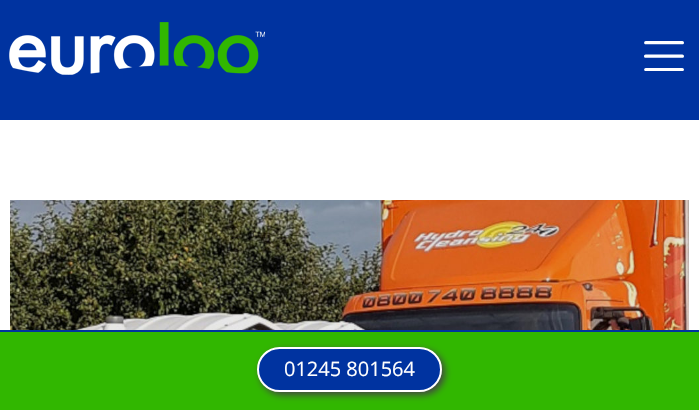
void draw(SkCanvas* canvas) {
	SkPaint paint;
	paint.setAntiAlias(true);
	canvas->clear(0xffffffff);
	paint.setColor(0xff0033a0);
	canvas->drawRect(SkRect::MakeXYWH(0, 0, 699, 120), paint);
	canvas->drawImageRect(SkImages::DeferredFromEncodedData(SkData::MakeFromFileName("img1.png")), SkRect::MakeXYWH(9, 22, 256, 53), SkSamplingOptions());
	canvas->drawImageRect(SkImages::DeferredFromEncodedData(SkData::MakeFromFileName("img2.png")), SkRect::MakeXYWH(644, 41, 40, 30), SkSamplingOptions());
	canvas->drawImageRect(SkImages::DeferredFromEncodedData(SkData::MakeFromFileName("img3.png")), SkRect::MakeXYWH(10, 200, 679, 130), SkSamplingOptions());
	paint.setColor(0xff31b700);
	canvas->drawRect(SkRect::MakeXYWH(0, 332, 699, 78), paint);
	paint.setColor(0xff0033a0);
	canvas->drawRect(SkRect::MakeXYWH(0, 330, 699, 2), paint);
	paint.setColor(0xff444444);
	paint.setMaskFilter(SkMaskFilter::MakeBlur(kNormal_SkBlurStyle, 3.5));
	canvas->drawRoundRect(SkRect::MakeXYWH(260, 350, 185, 45), 22.5, 22.5, paint);
	paint.setMaskFilter(nullptr);
	paint.setColor(0xff0033a0);
	canvas->drawRoundRect(SkRect::MakeXYWH(258, 348, 183, 43), 21.5, 21.5, paint);
	paint.setStroke(true);
	paint.setStrokeWidth(2);
	paint.setColor(0xffffffff);
	canvas->drawRoundRect(SkRect::MakeXYWH(258, 348, 183, 43), 21.5, 21.5, paint);
	SkFont f1(fontMgr->matchFamilyStyle("Open Sans", SkFontStyle::Normal()), 20);
	f1.setSubpixel(true);
	paint.setStroke(false);
	canvas->drawString("01245 801564", 284, 376, f1, paint);
}
